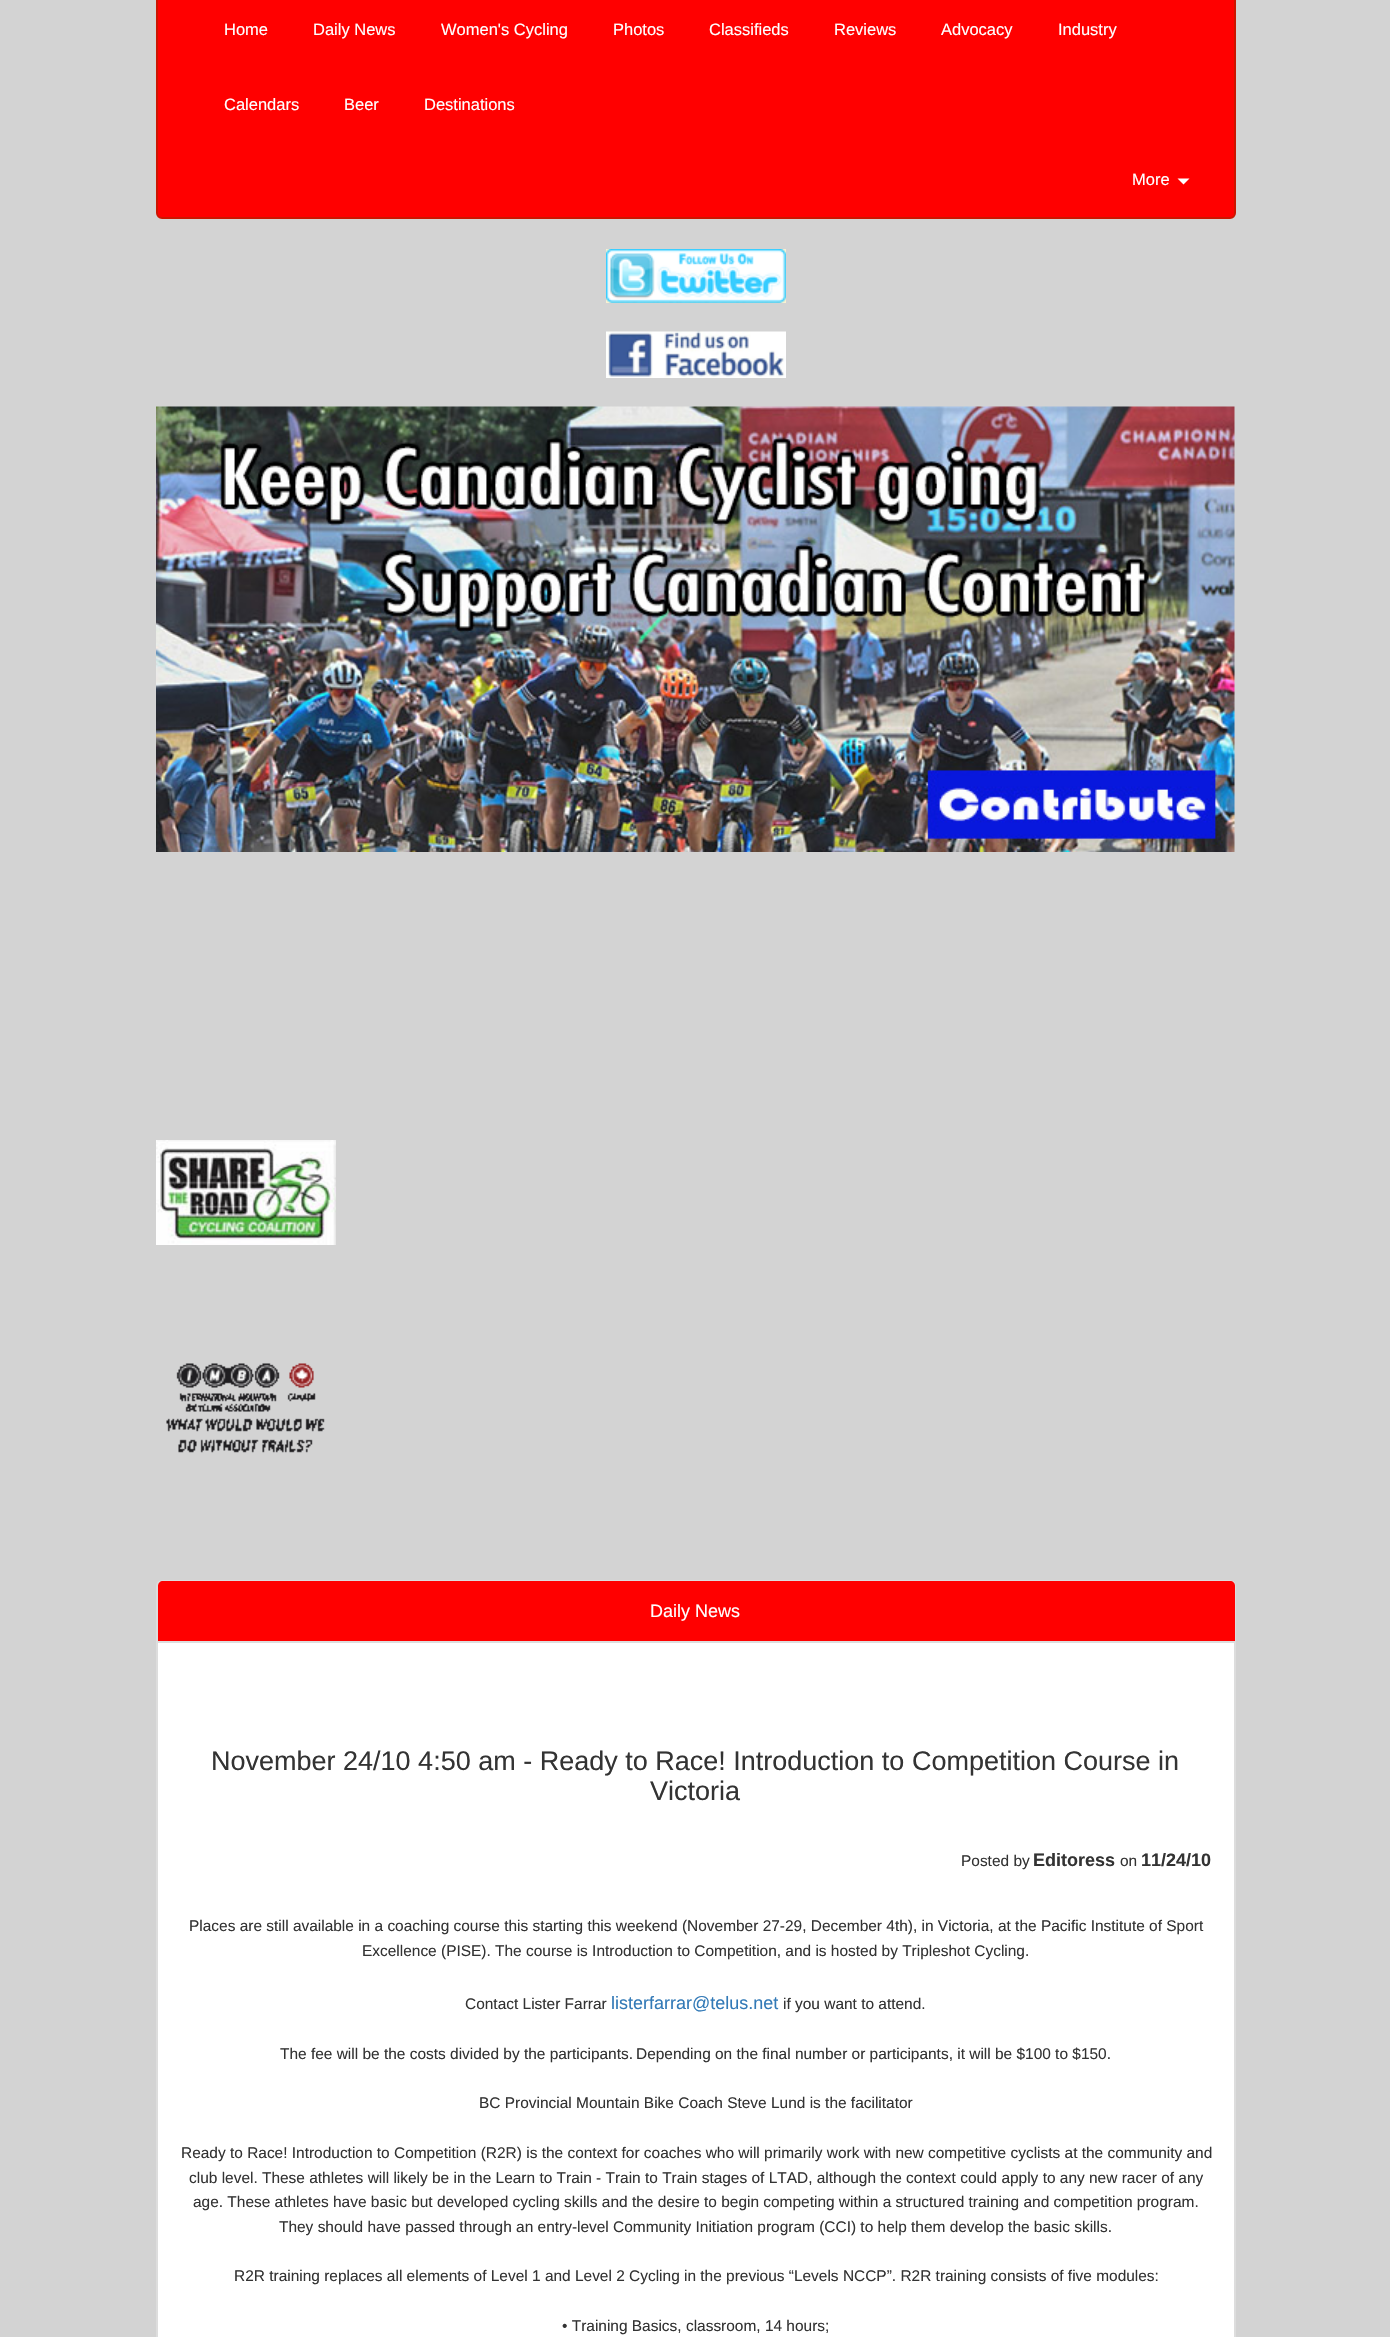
void draw(SkCanvas* canvas) {
	SkPaint paint;
	paint.setAntiAlias(true);
	auto svgPath = [&](const char* data, bool evenOdd = false) {
		SkPath result = *SkParsePath::FromSVGString(data);
		if (evenOdd) result.setFillType(SkPathFillType::kEvenOdd);
		return result;
	};
	canvas->clear(0xffd3d3d3);
	paint.setColor(0xffff0000);
	canvas->drawRoundRect(SkRect::MakeXYWH(157, -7, 1078, 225), 5, 5, paint);
	paint.setStroke(true);
	paint.setStrokeWidth(2);
	paint.setColor(0xffcc1500);
	canvas->drawRoundRect(SkRect::MakeXYWH(157, -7, 1078, 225), 5, 5, paint);
	SkFont f1(fontMgr->matchFamilyStyle("Liberation Sans", SkFontStyle::Normal()), 16.5);
	f1.setSubpixel(true);
	paint.setStroke(false);
	paint.setColor(0xffffffff);
	canvas->drawString("Home", 224, 35, f1, paint);
	canvas->drawString("Daily News", 313, 35, f1, paint);
	canvas->drawString("Women's Cycling", 441, 35, f1, paint);
	canvas->drawString("Photos", 613, 35, f1, paint);
	canvas->drawString("Classifieds", 709, 35, f1, paint);
	canvas->drawString("Reviews", 834, 35, f1, paint);
	canvas->drawString("Advocacy", 941, 35, f1, paint);
	canvas->drawString("Industry", 1058, 35, f1, paint);
	canvas->drawString("Calendars", 224, 110, f1, paint);
	canvas->drawString("Beer", 344, 110, f1, paint);
	canvas->drawString("Destinations", 424, 110, f1, paint);
	canvas->drawString("More", 1132, 185, f1, paint);
	canvas->drawPath(svgPath("M1177.5 178.5H1189.5L1183.5 184.5Z"), paint);
	canvas->drawImageRect(SkImages::DeferredFromEncodedData(SkData::MakeFromFileName("img1.png")), SkRect::MakeXYWH(606, 249, 180, 54), SkSamplingOptions());
	canvas->drawImageRect(SkImages::DeferredFromEncodedData(SkData::MakeFromFileName("img2.png")), SkRect::MakeXYWH(606, 331, 180, 47), SkSamplingOptions());
	canvas->drawImageRect(SkImages::DeferredFromEncodedData(SkData::MakeFromFileName("img3.png")), SkRect::MakeXYWH(156, 406, 1079, 446), SkSamplingOptions());
	canvas->drawImageRect(SkImages::DeferredFromEncodedData(SkData::MakeFromFileName("img4.png")), SkRect::MakeXYWH(156, 1140, 180, 105), SkSamplingOptions());
	canvas->drawImageRect(SkImages::DeferredFromEncodedData(SkData::MakeFromFileName("img5.png")), SkRect::MakeXYWH(166, 1363, 159, 90), SkSamplingOptions());
	canvas->drawRoundRect(SkRect::MakeXYWH(157, 1581, 1078, 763), 5, 5, paint);
	paint.setStroke(true);
	paint.setColor(0xffdddddd);
	canvas->drawRoundRect(SkRect::MakeXYWH(157, 1581, 1078, 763), 5, 5, paint);
	paint.setStroke(false);
	paint.setColor(0xffff0000);
	canvas->drawPath(svgPath("M163 1581H1230C1233 1581 1235 1583 1235 1586V1643H158V1586C158 1583 160 1581 163 1581Z"), paint);
	paint.setColor(0xffdddddd);
	canvas->drawRect(SkRect::MakeXYWH(158, 1641, 1077, 2), paint);
	SkFont f2(fontMgr->matchFamilyStyle("Liberation Sans", SkFontStyle::Normal()), 18);
	f2.setSubpixel(true);
	paint.setColor(0xffffffff);
	canvas->drawString("Daily News", 650, 1617, f2, paint);
	SkFont f3(fontMgr->matchFamilyStyle("Liberation Sans", SkFontStyle::Normal()), 27);
	f3.setSubpixel(true);
	paint.setColor(0xff333333);
	canvas->drawString("November 24/10 4:50 am - Ready to Race! Introduction to Competition Course in", 211, 1770, f3, paint);
	canvas->drawString("Victoria", 650, 1800, f3, paint);
	SkFont f4(fontMgr->matchFamilyStyle("Liberation Sans", SkFontStyle::Normal()), 15.45);
	f4.setSubpixel(true);
	canvas->drawString("Posted by", 961, 1866, f4, paint);
	SkFont f5(fontMgr->matchFamilyStyle("Liberation Sans", SkFontStyle::Bold()), 18);
	f5.setSubpixel(true);
	canvas->drawString("Editoress", 1033, 1866, f5, paint);
	canvas->drawString("on", 1120, 1866, f4, paint);
	canvas->drawString("11/24/10", 1141, 1866, f5, paint);
	canvas->drawString("Places are still available in a coaching course this starting this weekend (November 27-29, December 4th), in Victoria, at the Pacific Institute of Sport", 189, 1931, f4, paint);
	canvas->drawString("Excellence (PISE). The course is Introduction to Competition, and is hosted by Tripleshot Cycling.", 362, 1956, f4, paint);
	canvas->drawString("Contact Lister Farrar", 465, 2009, f4, paint);
	paint.setColor(0xff337ab7);
	canvas->drawString("listerfarrar@telus.net", 611, 2009, f2, paint);
	paint.setColor(0xff333333);
	canvas->drawString("if you want to attend.", 783, 2009, f4, paint);
	canvas->drawString("The fee will be the costs divided by the participants.", 280, 2059, f4, paint);
	canvas->drawString("Depending on the final number or participants, it will be $100 to $150.", 636, 2059, f4, paint);
	canvas->drawString("BC Provincial Mountain Bike Coach Steve Lund is the facilitator", 479, 2108, f4, paint);
	canvas->drawString("Ready to Race! Introduction to Competition (R2R) is the context for coaches who will primarily work with new competitive cyclists at the community and", 181, 2158, f4, paint);
	canvas->drawString("club level. These athletes will likely be in the Learn to Train - Train to Train stages of LTAD, although the context could apply to any new racer of any", 189, 2183, f4, paint);
	canvas->drawString("age. These athletes have basic but developed cycling skills and the desire to begin competing within a structured training and competition program.", 193, 2207, f4, paint);
	canvas->drawString("They should have passed through an entry-level Community Initiation program (CCI) to help them develop the basic skills.", 279, 2232, f4, paint);
	canvas->drawString("R2R training replaces all elements of Level 1 and Level 2 Cycling in the previous “Levels NCCP”. R2R training consists of five modules:", 234, 2281, f4, paint);
	canvas->drawString("• Training Basics, classroom, 14 hours;", 562, 2331, f4, paint);
}
